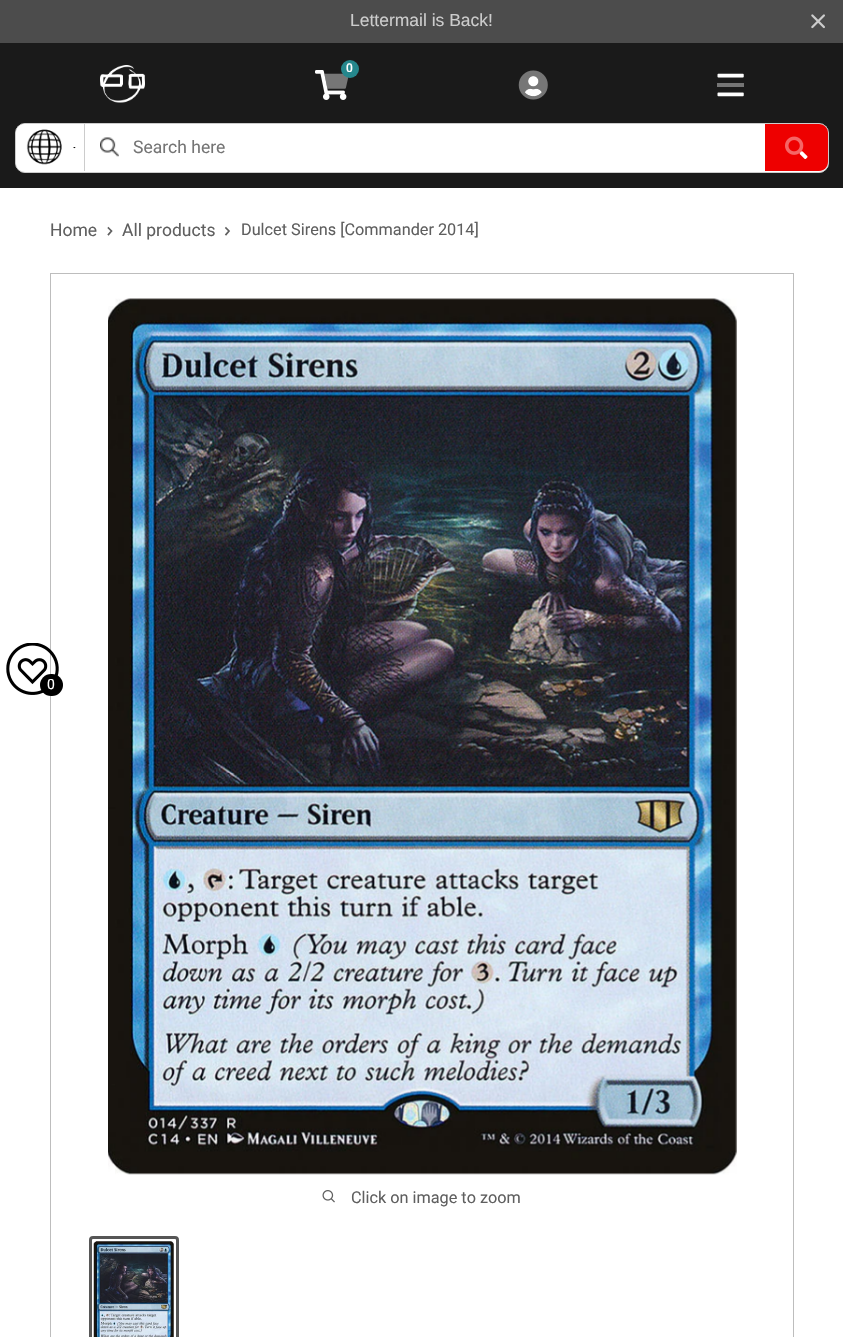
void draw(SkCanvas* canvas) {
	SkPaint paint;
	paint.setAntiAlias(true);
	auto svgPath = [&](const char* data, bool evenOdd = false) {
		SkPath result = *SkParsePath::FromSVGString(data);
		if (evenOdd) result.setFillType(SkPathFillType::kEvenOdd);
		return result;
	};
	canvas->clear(0xffffffff);
	paint.setColor(0xff4c4c4c);
	canvas->drawRect(SkRect::MakeXYWH(0, 0, 843, 43), paint);
	SkFont f1(fontMgr->matchFamilyStyle("Liberation Sans", SkFontStyle::Normal()), 17.5);
	f1.setSubpixel(true);
	paint.setColor(0xffcccccc);
	canvas->drawString("Lettermail is Back!", 350, 26, f1, paint);
	canvas->drawImageRect(SkImages::DeferredFromEncodedData(SkData::MakeFromFileName("img1.png")), SkRect::MakeXYWH(811, 14, 14, 15), SkSamplingOptions());
	paint.setColor(0xff1a1a1a);
	canvas->drawRect(SkRect::MakeXYWH(0, 43, 843, 145), paint);
	canvas->drawImageRect(SkImages::DeferredFromEncodedData(SkData::MakeFromFileName("img2.png")), SkRect::MakeXYWH(100, 65, 45, 38), SkSamplingOptions());
	canvas->drawImageRect(SkImages::DeferredFromEncodedData(SkData::MakeFromFileName("img3.png")), SkRect::MakeXYWH(315, 70, 32, 30), SkSamplingOptions());
	canvas->drawImageRect(SkImages::DeferredFromEncodedData(SkData::MakeFromFileName("img4.png")), SkRect::MakeXYWH(324, 73, 25, 16), SkSamplingOptions());
	paint.setColor(0xff25878c);
	canvas->drawCircle(350, 69, 9, paint);
	SkFont f2(fontMgr->matchFamilyStyle("Roboto", SkFontStyle(500, SkFontStyle::kNormal_Width, SkFontStyle::kUpright_Slant)), 12);
	f2.setSubpixel(true);
	paint.setColor(0xffffffff);
	canvas->drawString("0", 346, 72, f2, paint);
	canvas->drawImageRect(SkImages::DeferredFromEncodedData(SkData::MakeFromFileName("img6.png")), SkRect::MakeXYWH(524, 76, 18, 21), SkSamplingOptions());
	canvas->drawImageRect(SkImages::DeferredFromEncodedData(SkData::MakeFromFileName("img5.png")), SkRect::MakeXYWH(518, 70, 30, 30), SkSamplingOptions());
	canvas->drawImageRect(SkImages::DeferredFromEncodedData(SkData::MakeFromFileName("img7.png")), SkRect::MakeXYWH(717, 73, 27, 24), SkSamplingOptions());
	paint.setColor(0xff757575);
	canvas->drawRect(SkRect::MakeXYWH(717, 83, 27, 4), paint);
	paint.setColor(0xffffffff);
	canvas->drawRoundRect(SkRect::MakeXYWH(15.5, 123.5, 813, 49), 9.5, 9.5, paint);
	paint.setStroke(true);
	paint.setStrokeWidth(1);
	paint.setColor(0xffcccccc);
	canvas->drawRoundRect(SkRect::MakeXYWH(15.5, 123.5, 813, 49), 9.5, 9.5, paint);
	paint.setStroke(false);
	paint.setColor(0xffffffff);
	canvas->drawPath(svgPath("M25 124H85V171H25C20 171 16 167 16 162V133C16 128 20 124 25 124Z"), paint);
	canvas->drawImageRect(SkImages::DeferredFromEncodedData(SkData::MakeFromFileName("img8.png")), SkRect::MakeXYWH(26, 129, 50, 36), SkSamplingOptions());
	paint.setColor(0xffcccccc);
	canvas->drawRect(SkRect::MakeXYWH(84, 124, 1, 47), paint);
	canvas->drawImageRect(SkImages::DeferredFromEncodedData(SkData::MakeFromFileName("img9.png")), SkRect::MakeXYWH(100, 137, 19, 20), SkSamplingOptions());
	SkFont f3(fontMgr->matchFamilyStyle("Roboto", SkFontStyle::Normal()), 17.5);
	f3.setSubpixel(true);
	paint.setColor(0xff757575);
	canvas->drawString("Search here", 133, 153, f3, paint);
	paint.setColor(0xffee0000);
	canvas->drawPath(svgPath("M765 124H819C824 124 828 128 828 133V162C828 167 824 171 819 171H765Z"), paint);
	canvas->drawImageRect(SkImages::DeferredFromEncodedData(SkData::MakeFromFileName("img11.png")), SkRect::MakeXYWH(799, 151, 9, 8), SkSamplingOptions());
	canvas->drawImageRect(SkImages::DeferredFromEncodedData(SkData::MakeFromFileName("img10.png")), SkRect::MakeXYWH(785, 136, 19, 19), SkSamplingOptions());
	paint.setColor(0xff5f5f5f);
	canvas->drawString("Home", 50, 236, f3, paint);
	paint.setStroke(true);
	paint.setStrokeWidth(1.7);
	paint.setStrokeCap(SkPaint::kSquare_Cap);
	canvas->drawPath(svgPath("M108.5 228L111.5 231L108.5 234.5"), paint);
	paint.setStroke(false);
	canvas->drawString("All products", 122, 236, f3, paint);
	paint.setStroke(true);
	canvas->drawPath(svgPath("M226 228L229 231L226 234.5"), paint);
	SkFont f4(fontMgr->matchFamilyStyle("Roboto", SkFontStyle::Normal()), 16.25);
	f4.setSubpixel(true);
	paint.setStroke(false);
	canvas->drawString("Dulcet Sirens [Commander 2014]", 241, 235, f4, paint);
	paint.setStroke(true);
	paint.setStrokeWidth(1);
	paint.setStrokeCap(SkPaint::kButt_Cap);
	paint.setColor(0xffbdbdbd);
	canvas->drawRect(SkRect::MakeXYWH(50.5, 273.5, 743, 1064), paint);
	canvas->drawImageRect(SkImages::DeferredFromEncodedData(SkData::MakeFromFileName("img12.png")), SkRect::MakeXYWH(108, 298, 629, 877), SkSamplingOptions());
	canvas->drawImageRect(SkImages::DeferredFromEncodedData(SkData::MakeFromFileName("img13.png")), SkRect::MakeXYWH(322, 1190, 13, 13), SkSamplingOptions());
	paint.setStroke(false);
	paint.setColor(0xff5f5f5f);
	canvas->drawString("Click on image to zoom", 351, 1203, f4, paint);
	paint.setStroke(true);
	paint.setStrokeWidth(3);
	paint.setColor(0xff565656);
	canvas->drawRoundRect(SkRect::MakeXYWH(90.5, 1237.5, 87, 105), 2.5, 2.5, paint);
	canvas->drawImageRect(SkImages::DeferredFromEncodedData(SkData::MakeFromFileName("img14.png")), SkRect::MakeXYWH(93, 1241, 81, 96), SkSamplingOptions());
	canvas->drawImageRect(SkImages::DeferredFromEncodedData(SkData::MakeFromFileName("img15.png")), SkRect::MakeXYWH(6, 643, 53, 52), SkSamplingOptions());
	paint.setStroke(false);
	paint.setColor(0xff000000);
	canvas->drawRoundRect(SkRect::MakeXYWH(40, 674, 23, 22), 11, 11, paint);
	SkFont f5(fontMgr->matchFamilyStyle("Roboto", SkFontStyle::Normal()), 14);
	f5.setSubpixel(true);
	paint.setColor(0xffffffff);
	canvas->drawString("0", 47, 689, f5, paint);
}
